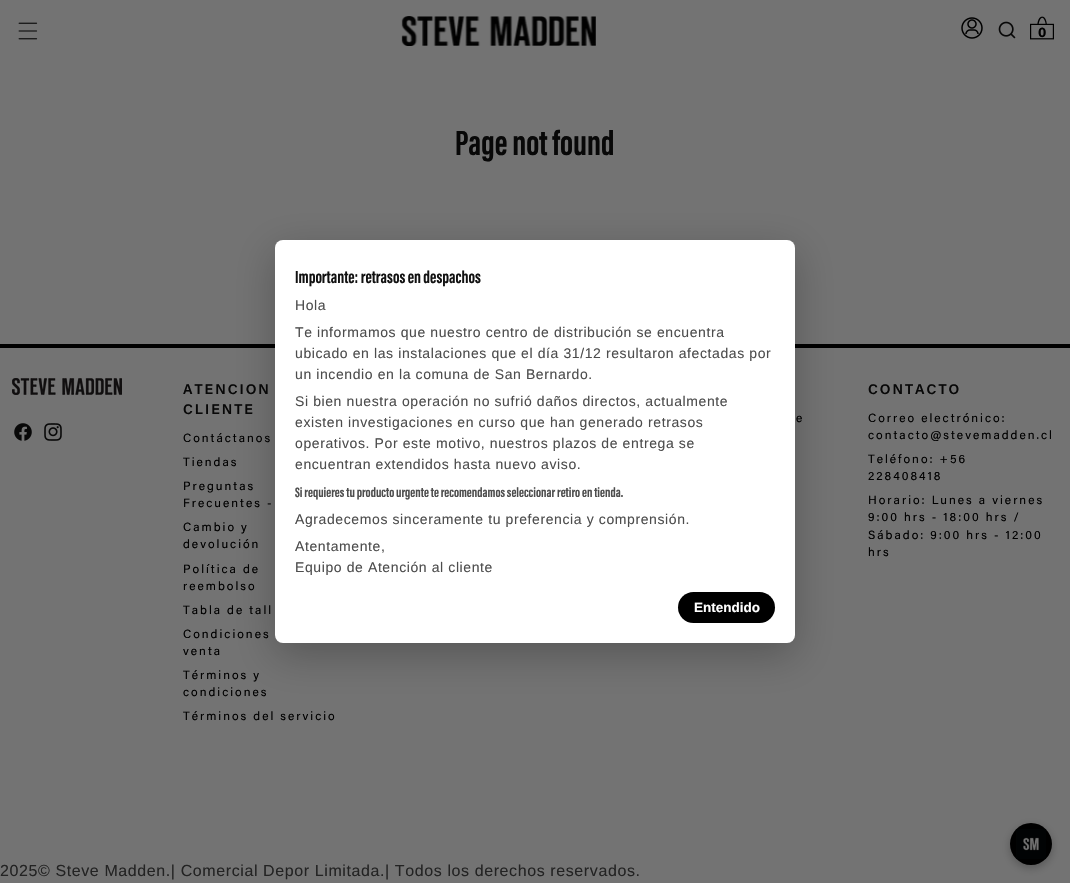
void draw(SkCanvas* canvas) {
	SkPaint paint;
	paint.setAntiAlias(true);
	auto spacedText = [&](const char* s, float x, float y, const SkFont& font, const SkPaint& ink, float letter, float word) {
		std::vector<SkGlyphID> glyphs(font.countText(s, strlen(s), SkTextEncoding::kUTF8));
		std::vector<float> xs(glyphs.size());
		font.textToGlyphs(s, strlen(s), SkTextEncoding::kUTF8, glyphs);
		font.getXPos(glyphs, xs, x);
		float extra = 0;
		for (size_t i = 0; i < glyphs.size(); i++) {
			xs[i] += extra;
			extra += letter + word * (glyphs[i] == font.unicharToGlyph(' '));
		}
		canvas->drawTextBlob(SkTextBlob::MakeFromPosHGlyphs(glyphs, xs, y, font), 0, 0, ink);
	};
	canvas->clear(0xff737373);
	canvas->drawImageRect(SkImages::DeferredFromEncodedData(SkData::MakeFromFileName("img1.png")), SkRect::MakeXYWH(18, 22, 20, 18), SkSamplingOptions());
	canvas->drawImageRect(SkImages::DeferredFromEncodedData(SkData::MakeFromFileName("img2.png")), SkRect::MakeXYWH(401, 16, 195, 30), SkSamplingOptions());
	canvas->drawImageRect(SkImages::DeferredFromEncodedData(SkData::MakeFromFileName("img3.png")), SkRect::MakeXYWH(961, 17, 22, 22), SkSamplingOptions());
	canvas->drawImageRect(SkImages::DeferredFromEncodedData(SkData::MakeFromFileName("img4.png")), SkRect::MakeXYWH(998, 21, 18, 18), SkSamplingOptions());
	canvas->drawImageRect(SkImages::DeferredFromEncodedData(SkData::MakeFromFileName("img5.png")), SkRect::MakeXYWH(1030, 16, 24, 24), SkSamplingOptions());
	SkFont f1(fontMgr->matchFamilyStyle("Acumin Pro", SkFontStyle::Bold()), 14);
	f1.setSubpixel(true);
	paint.setColor(0xff000000);
	spacedText("0", 1038, 37, f1, paint, 0.6, 0);
	SkFont f2(fontMgr->matchFamilyStyle("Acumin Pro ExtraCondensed", SkFontStyle::Bold()), 36);
	f2.setSubpixel(true);
	paint.setColor(0xff080808);
	canvas->drawString("Page not found", 455, 155, f2, paint);
	paint.setColor(0xff000000);
	canvas->drawRect(SkRect::MakeXYWH(0, 344, 1070, 4), paint);
	paint.setColor(0x40000000);
	paint.setMaskFilter(SkMaskFilter::MakeBlur(kNormal_SkBlurStyle, 20));
	canvas->drawRoundRect(SkRect::MakeXYWH(275, 252, 520, 403), 8, 8, paint);
	paint.setMaskFilter(nullptr);
	paint.setColor(0xffffffff);
	canvas->drawRoundRect(SkRect::MakeXYWH(275, 240, 520, 403), 8, 8, paint);
	SkFont f3(fontMgr->matchFamilyStyle("Acumin Pro ExtraCondensed", SkFontStyle::Bold()), 18);
	f3.setSubpixel(true);
	paint.setColor(0xff121212);
	canvas->drawString("Importante: retrasos en despachos", 295, 283, f3, paint);
	SkFont f4(fontMgr->matchFamilyStyle("Arimo", SkFontStyle::Normal()), 14);
	f4.setSubpixel(true);
	paint.setColor(0xff4d4d4d);
	spacedText("Hola", 295, 310, f4, paint, 0.6, 0);
	spacedText("Te informamos que nuestro centro de distribución se encuentra", 295, 337, f4, paint, 0.6, 0);
	spacedText("ubicado en las instalaciones que el día 31/12 resultaron afectadas por", 295, 358, f4, paint, 0.6, 0);
	spacedText("un incendio en la comuna de San Bernardo.", 295, 379, f4, paint, 0.6, 0);
	spacedText("Si bien nuestra operación no sufrió daños directos, actualmente", 295, 406, f4, paint, 0.6, 0);
	spacedText("existen investigaciones en curso que han generado retrasos", 295, 427, f4, paint, 0.6, 0);
	spacedText("operativos. Por este motivo, nuestros plazos de entrega se", 295, 448, f4, paint, 0.6, 0);
	spacedText("encuentran extendidos hasta nuevo aviso.", 295, 469, f4, paint, 0.6, 0);
	SkFont f5(fontMgr->matchFamilyStyle("Acumin Pro ExtraCondensed", SkFontStyle::Bold()), 14);
	f5.setSubpixel(true);
	canvas->drawString("Si requieres tu producto urgente te recomendamos seleccionar retiro en tienda.", 295, 497, f5, paint);
	spacedText("Agradecemos sinceramente tu preferencia y comprensión.", 295, 524, f4, paint, 0.6, 0);
	spacedText("Atentamente,", 295, 551, f4, paint, 0.6, 0);
	spacedText("Equipo de Atención al cliente", 295, 572, f4, paint, 0.6, 0);
	paint.setColor(0xff000000);
	canvas->drawRoundRect(SkRect::MakeXYWH(678, 592, 97, 31), 15.5, 15.5, paint);
	SkFont f6(fontMgr->matchFamilyStyle("Liberation Sans", SkFontStyle::Bold()), 13.5);
	f6.setSubpixel(true);
	paint.setColor(0xffffffff);
	canvas->drawString("Entendido", 694, 612, f6, paint);
	canvas->drawImageRect(SkImages::DeferredFromEncodedData(SkData::MakeFromFileName("img6.png")), SkRect::MakeXYWH(12, 378, 110, 17), SkSamplingOptions());
	canvas->drawImageRect(SkImages::DeferredFromEncodedData(SkData::MakeFromFileName("img7.png")), SkRect::MakeXYWH(14, 423, 18, 18), SkSamplingOptions());
	canvas->drawImageRect(SkImages::DeferredFromEncodedData(SkData::MakeFromFileName("img8.png")), SkRect::MakeXYWH(44, 423, 18, 18), SkSamplingOptions());
	SkFont f7(fontMgr->matchFamilyStyle("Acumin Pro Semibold", SkFontStyle(600, SkFontStyle::kNormal_Width, SkFontStyle::kUpright_Slant)), 14);
	f7.setSubpixel(true);
	paint.setColor(0xff080808);
	spacedText("ATENCION", 183, 394, f7, paint, 2, 0);
	spacedText("CLIENTE", 183, 414, f7, paint, 2, 0);
	SkFont f8(fontMgr->matchFamilyStyle("Acumin Pro", SkFontStyle::Normal()), 12);
	f8.setSubpixel(true);
	paint.setColor(0xff000000);
	spacedText("Contáctanos", 183, 442, f8, paint, 2, 0);
	spacedText("Tiendas", 183, 466, f8, paint, 2, 0);
	spacedText("Preguntas", 183, 490, f8, paint, 2, 0);
	spacedText("Frecuentes -", 183, 507, f8, paint, 2, 0);
	spacedText("Cambio y", 183, 531, f8, paint, 2, 0);
	spacedText("devolución", 183, 548, f8, paint, 2, 0);
	spacedText("Política de", 183, 573, f8, paint, 2, 0);
	spacedText("reembolso", 183, 590, f8, paint, 2, 0);
	spacedText("Tabla de tall", 183, 614, f8, paint, 2, 0);
	spacedText("Condiciones", 183, 638, f8, paint, 2, 0);
	spacedText("venta", 183, 655, f8, paint, 2, 0);
	spacedText("Términos y", 183, 679, f8, paint, 2, 0);
	spacedText("condiciones", 183, 696, f8, paint, 2, 0);
	spacedText("Términos del servicio", 183, 720, f8, paint, 2, 0);
	spacedText("e", 796, 422, f8, paint, 2, 0);
	paint.setColor(0xff080808);
	spacedText("CONTACTO", 868, 394, f7, paint, 2, 0);
	paint.setColor(0xff000000);
	spacedText("Correo electrónico:", 868, 422, f8, paint, 2, 0);
	spacedText("contacto@stevemadden.cl", 868, 439, f8, paint, 2, 0);
	spacedText("Teléfono: +56", 868, 463, f8, paint, 2, 0);
	spacedText("228408418", 868, 480, f8, paint, 2, 0);
	spacedText("Horario: Lunes a viernes", 868, 504, f8, paint, 2, 0);
	spacedText("9:00 hrs - 18:00 hrs /", 868, 521, f8, paint, 2, 0);
	spacedText("Sábado: 9:00 hrs - 12:00", 868, 539, f8, paint, 2, 0);
	spacedText("hrs", 868, 556, f8, paint, 2, 0);
	SkFont f9(fontMgr->matchFamilyStyle("Arimo", SkFontStyle::Normal()), 16);
	f9.setSubpixel(true);
	paint.setColor(0xff232323);
	spacedText("2025© Steve Madden.| Comercial Depor Limitada.| Todos los derechos reservados.", 0, 876, f9, paint, 0.6, 0);
	paint.setColor(0x40000000);
	paint.setMaskFilter(SkMaskFilter::MakeBlur(kNormal_SkBlurStyle, 4));
	canvas->drawRoundRect(SkRect::MakeXYWH(1010, 826, 42, 42), 21, 21, paint);
	paint.setMaskFilter(nullptr);
	paint.setColor(0xff000000);
	canvas->drawCircle(1031, 844, 21, paint);
	canvas->drawImageRect(SkImages::DeferredFromEncodedData(SkData::MakeFromFileName("img9.png")), SkRect::MakeXYWH(1016, 829, 30, 30), SkSamplingOptions());
}
